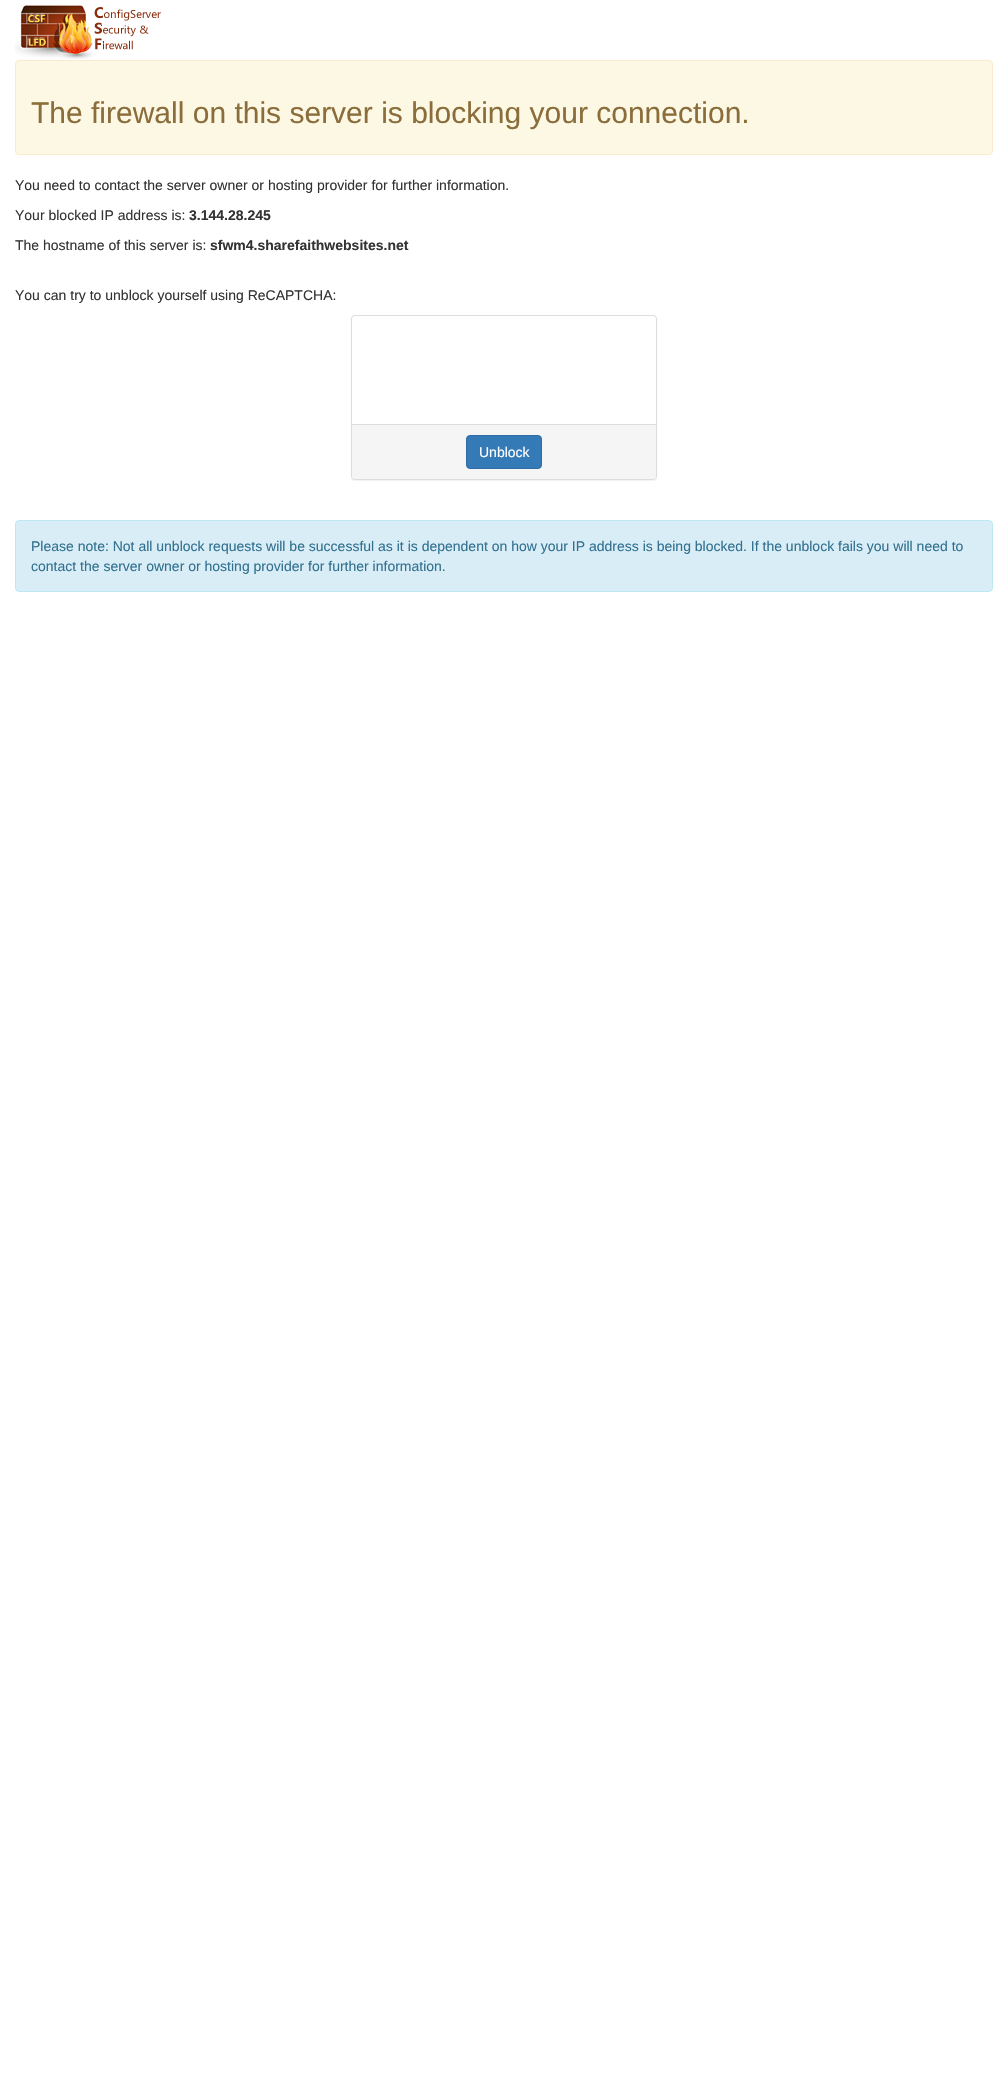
void draw(SkCanvas* canvas) {
	SkPaint paint;
	paint.setAntiAlias(true);
	auto svgPath = [&](const char* data, bool evenOdd = false) {
		SkPath result = *SkParsePath::FromSVGString(data);
		if (evenOdd) result.setFillType(SkPathFillType::kEvenOdd);
		return result;
	};
	canvas->clear(0xffffffff);
	canvas->drawImageRect(SkImages::DeferredFromEncodedData(SkData::MakeFromFileName("img1.png")), SkRect::MakeXYWH(15, 5, 146, 54), SkSamplingOptions());
	paint.setColor(0xfffcf8e3);
	canvas->drawRoundRect(SkRect::MakeXYWH(15.5, 60.5, 977, 94), 3.5, 3.5, paint);
	paint.setStroke(true);
	paint.setStrokeWidth(1);
	paint.setColor(0xfffaebcc);
	canvas->drawRoundRect(SkRect::MakeXYWH(15.5, 60.5, 977, 94), 3.5, 3.5, paint);
	SkFont f1(fontMgr->matchFamilyStyle("Liberation Sans", SkFontStyle::Normal()), 30);
	f1.setSubpixel(true);
	paint.setStroke(false);
	paint.setColor(0xff8a6d3b);
	canvas->drawString("The firewall on this server is blocking your connection.", 31, 123, f1, paint);
	SkFont f2(fontMgr->matchFamilyStyle("Liberation Sans", SkFontStyle::Normal()), 14);
	f2.setSubpixel(true);
	paint.setColor(0xff333333);
	canvas->drawString("You need to contact the server owner or hosting provider for further information.", 15, 190, f2, paint);
	canvas->drawString("Your blocked IP address is:", 15, 220, f2, paint);
	SkFont f3(fontMgr->matchFamilyStyle("Liberation Sans", SkFontStyle::Bold()), 14);
	f3.setSubpixel(true);
	canvas->drawString("3.144.28.245", 189, 220, f3, paint);
	canvas->drawString("The hostname of this server is:", 15, 250, f2, paint);
	canvas->drawString("sfwm4.sharefaithwebsites.net", 210, 250, f3, paint);
	canvas->drawString("You can try to unblock yourself using ReCAPTCHA:", 15, 300, f2, paint);
	paint.setColor(0x0d000000);
	paint.setMaskFilter(SkMaskFilter::MakeBlur(kNormal_SkBlurStyle, 0.5));
	canvas->drawRoundRect(SkRect::MakeXYWH(351, 316, 306, 165), 4, 4, paint);
	paint.setMaskFilter(nullptr);
	paint.setColor(0xffffffff);
	canvas->drawRoundRect(SkRect::MakeXYWH(351.5, 315.5, 305, 164), 3.5, 3.5, paint);
	paint.setStroke(true);
	paint.setColor(0xffdddddd);
	canvas->drawRoundRect(SkRect::MakeXYWH(351.5, 315.5, 305, 164), 3.5, 3.5, paint);
	paint.setStroke(false);
	paint.setColor(0xfff5f5f5);
	canvas->drawPath(svgPath("M352 424H656V476C656 477.5 654.5 479 653 479H355C353.5 479 352 477.5 352 476Z"), paint);
	paint.setColor(0xffdddddd);
	canvas->drawRect(SkRect::MakeXYWH(352, 424, 304, 1), paint);
	paint.setColor(0xff337ab7);
	canvas->drawRoundRect(SkRect::MakeXYWH(466.5, 435.5, 75, 33), 3.5, 3.5, paint);
	paint.setStroke(true);
	paint.setColor(0xff2e6da4);
	canvas->drawRoundRect(SkRect::MakeXYWH(466.5, 435.5, 75, 33), 3.5, 3.5, paint);
	paint.setStroke(false);
	paint.setColor(0xffffffff);
	canvas->drawString("Unblock", 479, 457, f2, paint);
	paint.setColor(0xffd9edf7);
	canvas->drawRoundRect(SkRect::MakeXYWH(15.5, 520.5, 977, 71), 3.5, 3.5, paint);
	paint.setStroke(true);
	paint.setColor(0xffbce8f1);
	canvas->drawRoundRect(SkRect::MakeXYWH(15.5, 520.5, 977, 71), 3.5, 3.5, paint);
	paint.setStroke(false);
	paint.setColor(0xff31708f);
	canvas->drawString("Please note: Not all unblock requests will be successful as it is dependent on how your IP address is being blocked. If the unblock fails you will need to", 31, 551, f2, paint);
	canvas->drawString("contact the server owner or hosting provider for further information.", 31, 571, f2, paint);
}
